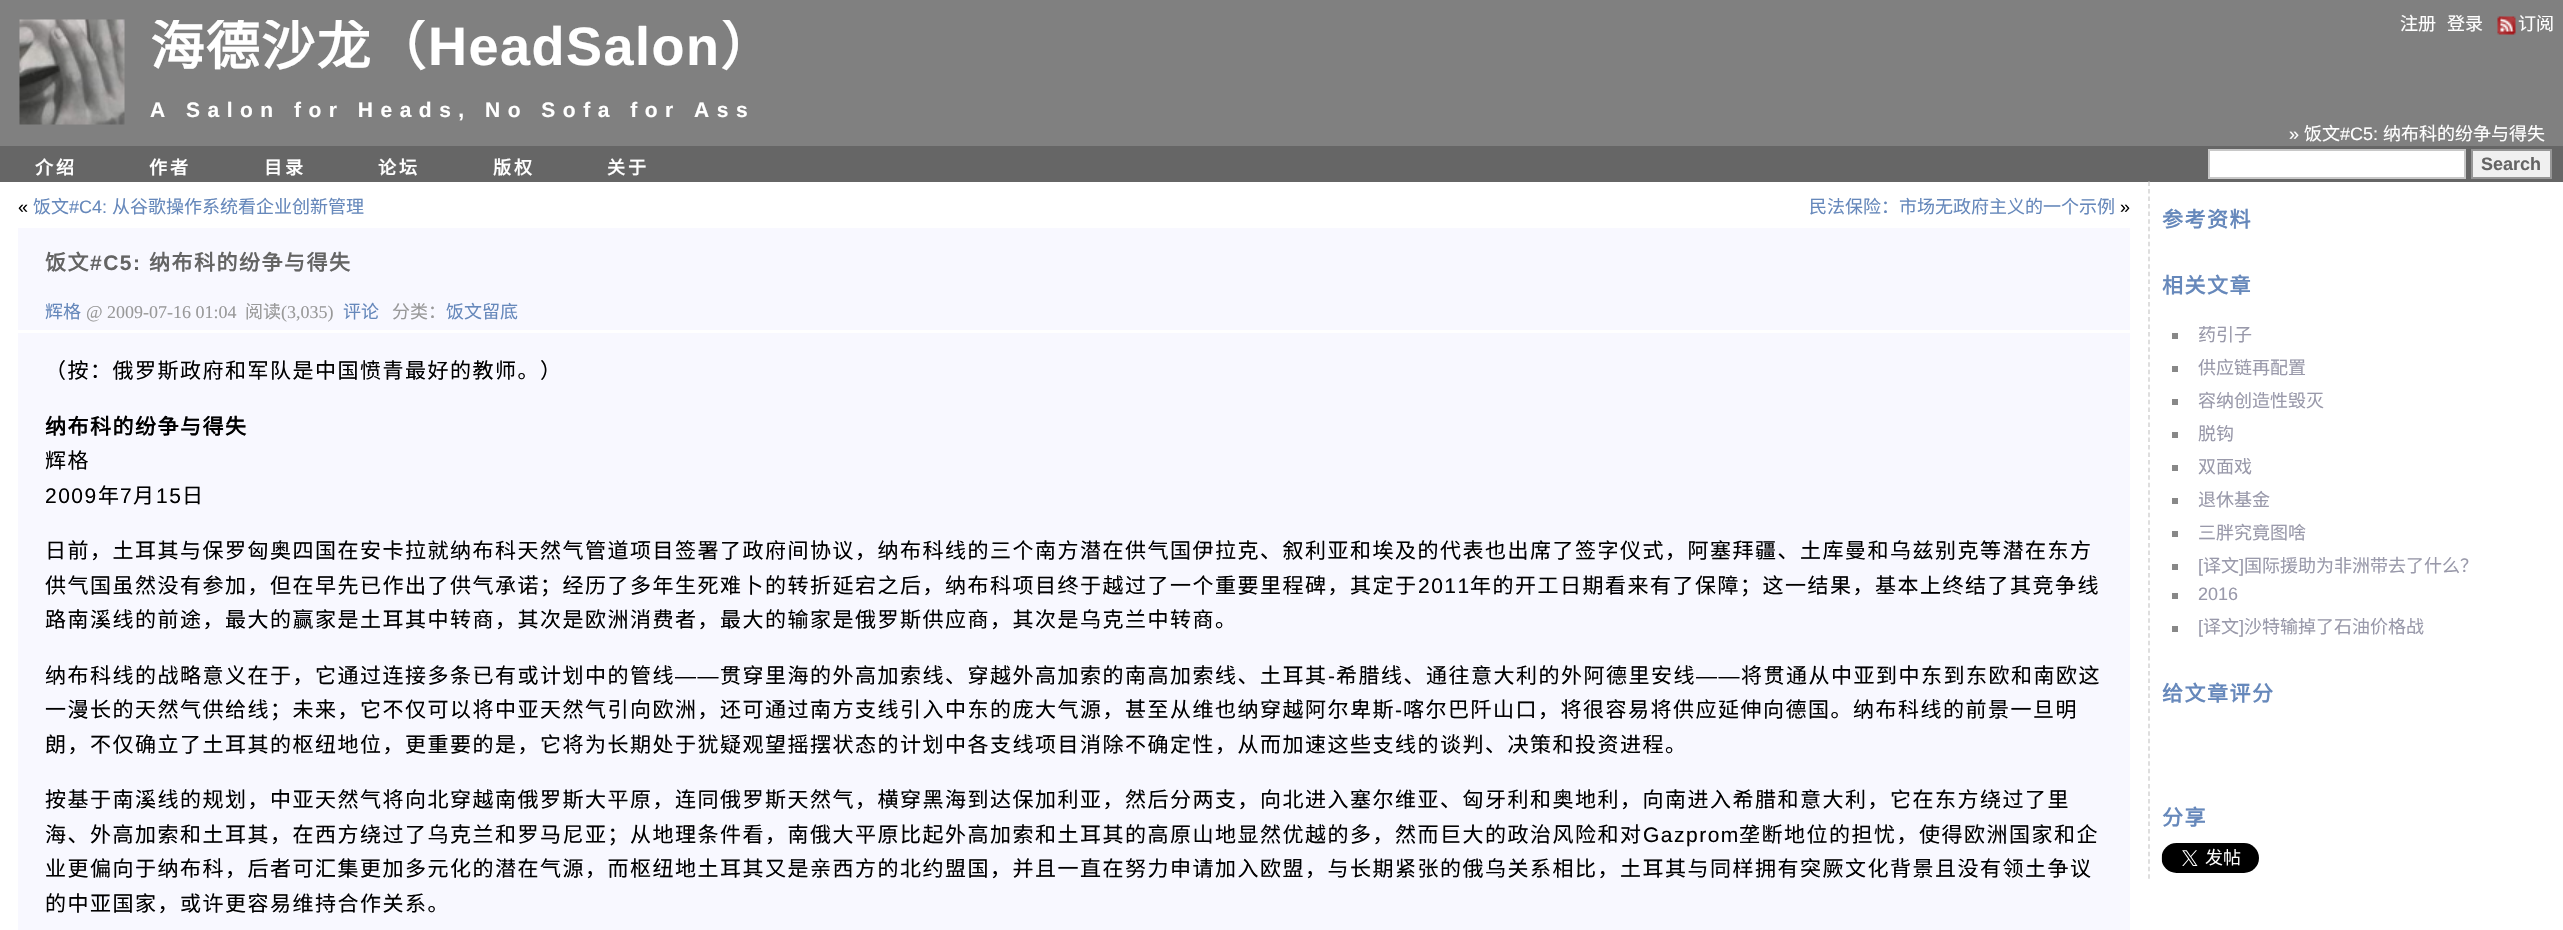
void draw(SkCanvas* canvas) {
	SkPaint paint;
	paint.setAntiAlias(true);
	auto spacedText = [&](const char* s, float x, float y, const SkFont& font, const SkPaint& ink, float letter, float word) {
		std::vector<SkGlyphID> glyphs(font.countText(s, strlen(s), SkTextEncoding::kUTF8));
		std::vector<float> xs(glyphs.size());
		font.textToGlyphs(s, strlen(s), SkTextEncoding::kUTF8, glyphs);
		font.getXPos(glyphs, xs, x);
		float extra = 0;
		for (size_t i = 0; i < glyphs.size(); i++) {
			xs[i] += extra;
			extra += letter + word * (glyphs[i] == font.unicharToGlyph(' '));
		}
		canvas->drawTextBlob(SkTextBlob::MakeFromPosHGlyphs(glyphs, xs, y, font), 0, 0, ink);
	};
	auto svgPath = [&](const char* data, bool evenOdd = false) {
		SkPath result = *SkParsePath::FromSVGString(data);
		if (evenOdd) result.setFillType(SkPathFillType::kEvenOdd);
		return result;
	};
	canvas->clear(0xffffffff);
	paint.setColor(0xff808080);
	canvas->drawRect(SkRect::MakeXYWH(0, 0, 2563, 146), paint);
	canvas->drawImageRect(SkImages::DeferredFromEncodedData(SkData::MakeFromFileName("img1.png")), SkRect::MakeXYWH(19, 19, 106, 106), SkSamplingOptions());
	canvas->save();
	canvas->clipRect(SkRect::MakeXYWH(150, 20, 645, 54));
	SkFont f1(fontMgr->matchFamilyStyle("Noto Sans CJK SC", SkFontStyle::Bold()), 54);
	f1.setSubpixel(true);
	paint.setColor(0xffffffff);
	spacedText("海德沙龙（", 150, 65, f1, paint, 1.5, 0);
	canvas->restore();
	SkFont f2(fontMgr->matchFamilyStyle("Liberation Sans", SkFontStyle::Bold()), 54);
	f2.setSubpixel(true);
	spacedText("HeadSalon", 428, 65, f2, paint, 1.5, 0);
	canvas->save();
	canvas->clipRect(SkRect::MakeXYWH(150, 20, 645, 54));
	spacedText("）", 720, 65, f1, paint, 1.5, 0);
	canvas->restore();
	SkFont f3(fontMgr->matchFamilyStyle("Liberation Sans", SkFontStyle::Bold()), 21);
	f3.setSubpixel(true);
	spacedText("A Salon for Heads, No Sofa for Ass", 150, 117, f3, paint, 7.5, 0);
	SkFont f4(fontMgr->matchFamilyStyle("Noto Sans CJK SC", SkFontStyle::Normal()), 18);
	f4.setSubpixel(true);
	canvas->drawString("注册", 2400, 30, f4, paint);
	canvas->drawString("登录", 2447, 30, f4, paint);
	canvas->drawImageRect(SkImages::DeferredFromEncodedData(SkData::MakeFromFileName("img2.png")), SkRect::MakeXYWH(2497, 16, 19, 19), SkSamplingOptions());
	canvas->drawString("订阅", 2518, 30, f4, paint);
	SkFont f5(fontMgr->matchFamilyStyle("Liberation Sans", SkFontStyle::Normal()), 18);
	f5.setSubpixel(true);
	canvas->drawString("»", 2289, 140, f5, paint);
	canvas->drawString("饭文", 2304, 140, f4, paint);
	canvas->drawString("#C5:", 2340, 140, f5, paint);
	canvas->drawString("纳布科的纷争与得失", 2383, 140, f4, paint);
	paint.setColor(0xff666666);
	canvas->drawRect(SkRect::MakeXYWH(0, 146, 2563, 36), paint);
	SkFont f6(fontMgr->matchFamilyStyle("Noto Sans CJK SC", SkFontStyle::Bold()), 18);
	f6.setSubpixel(true);
	paint.setColor(0xffffffff);
	spacedText("介绍", 35, 174, f6, paint, 3, 0);
	spacedText("作者", 149, 174, f6, paint, 3, 0);
	spacedText("目录", 264, 174, f6, paint, 3, 0);
	spacedText("论坛", 378, 174, f6, paint, 3, 0);
	spacedText("版权", 493, 174, f6, paint, 3, 0);
	spacedText("关于", 607, 174, f6, paint, 3, 0);
	canvas->drawRect(SkRect::MakeXYWH(2209, 150, 256, 28), paint);
	paint.setStroke(true);
	paint.setStrokeWidth(2);
	paint.setColor(0xffc8c8c8);
	canvas->drawRect(SkRect::MakeXYWH(2209, 150, 256, 28), paint);
	paint.setStroke(false);
	paint.setColor(0xfff0f0f0);
	canvas->drawRect(SkRect::MakeXYWH(2472, 150, 79, 28), paint);
	paint.setStroke(true);
	paint.setColor(0xff969696);
	canvas->drawRect(SkRect::MakeXYWH(2472, 150, 79, 28), paint);
	SkFont f7(fontMgr->matchFamilyStyle("Liberation Sans", SkFontStyle::Bold()), 18);
	f7.setSubpixel(true);
	paint.setStroke(false);
	paint.setColor(0xff646464);
	canvas->drawString("Search", 2481, 170, f7, paint);
	paint.setColor(0xff000000);
	canvas->drawString("«", 18, 213, f5, paint);
	paint.setColor(0xff6688bb);
	canvas->drawString("饭文", 33, 213, f4, paint);
	canvas->drawString("#C4:", 69, 213, f5, paint);
	canvas->drawString("从谷歌操作系统看企业创新管理", 112, 213, f4, paint);
	canvas->drawString("民法保险：市场无政府主义的一个示例", 1809, 213, f4, paint);
	paint.setColor(0xff000000);
	canvas->drawString("»", 2120, 213, f5, paint);
	paint.setColor(0xfff8f8ff);
	canvas->drawRect(SkRect::MakeXYWH(18, 228, 2112, 102), paint);
	SkFont f8(fontMgr->matchFamilyStyle("Noto Sans CJK SC", SkFontStyle::Bold()), 21);
	f8.setSubpixel(true);
	paint.setColor(0xff646464);
	spacedText("饭文", 45, 270, f8, paint, 1.5, 0);
	spacedText("#C5:", 90, 270, f3, paint, 1.5, 0);
	spacedText("纳布科的纷争与得失", 149, 270, f8, paint, 1.5, 0);
	paint.setColor(0xff6688bb);
	canvas->drawString("辉格", 45, 318, f4, paint);
	SkFont f9(fontMgr->matchFamilyStyle("Liberation Serif", SkFontStyle::Normal()), 18);
	f9.setSubpixel(true);
	paint.setColor(0xff999999);
	canvas->drawString("@ 2009-07-16 01:04", 86, 318, f9, paint);
	canvas->drawString("阅读", 245, 318, f4, paint);
	canvas->drawString("(3,035)", 281, 318, f9, paint);
	paint.setColor(0xff6688bb);
	canvas->drawString("评论", 343, 318, f4, paint);
	paint.setColor(0xff999999);
	canvas->drawString("分类：", 392, 318, f4, paint);
	paint.setColor(0xff6688bb);
	canvas->drawString("饭文留底", 446, 318, f4, paint);
	paint.setColor(0xfff8f8ff);
	canvas->drawRect(SkRect::MakeXYWH(18, 333, 2112, 597), paint);
	SkFont f10(fontMgr->matchFamilyStyle("Noto Sans CJK SC", SkFontStyle::Normal()), 21);
	f10.setSubpixel(true);
	paint.setColor(0xff000000);
	spacedText("（按：俄罗斯政府和军队是中国愤青最好的教师。）", 45, 378, f10, paint, 1.5, 0);
	spacedText("纳布科的纷争与得失", 45, 434, f8, paint, 1.5, 0);
	spacedText("辉格", 45, 468, f10, paint, 1.5, 0);
	SkFont f11(fontMgr->matchFamilyStyle("Liberation Sans", SkFontStyle::Normal()), 21);
	f11.setSubpixel(true);
	spacedText("2009", 45, 503, f11, paint, 1.5, 0);
	spacedText("年", 98, 503, f10, paint, 1.5, 0);
	spacedText("7", 120, 503, f11, paint, 1.5, 0);
	spacedText("月", 133, 503, f10, paint, 1.5, 0);
	spacedText("15", 156, 503, f11, paint, 1.5, 0);
	spacedText("日", 182, 503, f10, paint, 1.5, 0);
	spacedText("日前，土耳其与保罗匈奥四国在安卡拉就纳布科天然气管道项目签署了政府间协议，纳布科线的三个南方潜在供气国伊拉克、叙利亚和埃及的代表也出席了签字仪式，阿塞拜疆、土库曼和乌兹别克等潜在东方", 45, 558, f10, paint, 1.5, 0);
	spacedText("供气国虽然没有参加，但在早先已作出了供气承诺；经历了多年生死难卜的转折延宕之后，纳布科项目终于越过了一个重要里程碑，其定于", 45, 593, f10, paint, 1.5, 0);
	spacedText("2011", 1418, 593, f11, paint, 1.5, 0);
	spacedText("年的开工日期看来有了保障；这一结果，基本上终结了其竞争线", 1470, 593, f10, paint, 1.5, 0);
	spacedText("路南溪线的前途，最大的赢家是土耳其中转商，其次是欧洲消费者，最大的输家是俄罗斯供应商，其次是乌克兰中转商。", 45, 627, f10, paint, 1.5, 0);
	spacedText("纳布科线的战略意义在于，它通过连接多条已有或计划中的管线", 45, 683, f10, paint, 1.5, 0);
	spacedText("——", 675, 683, f11, paint, 1.5, 0);
	spacedText("贯穿里海的外高加索线、穿越外高加索的南高加索线、土耳其", 720, 683, f10, paint, 1.5, 0);
	spacedText("-", 1328, 683, f11, paint, 1.5, 0);
	spacedText("希腊线、通往意大利的外阿德里安线", 1336, 683, f10, paint, 1.5, 0);
	spacedText("——", 1696, 683, f11, paint, 1.5, 0);
	spacedText("将贯通从中亚到中东到东欧和南欧这", 1741, 683, f10, paint, 1.5, 0);
	spacedText("一漫长的天然气供给线；未来，它不仅可以将中亚天然气引向欧洲，还可通过南方支线引入中东的庞大气源，甚至从维也纳穿越阿尔卑斯", 45, 717, f10, paint, 1.5, 0);
	spacedText("-", 1395, 717, f11, paint, 1.5, 0);
	spacedText("喀尔巴阡山口，将很容易将供应延伸向德国。纳布科线的前景一旦明", 1403, 717, f10, paint, 1.5, 0);
	spacedText("朗，不仅确立了土耳其的枢纽地位，更重要的是，它将为长期处于犹疑观望摇摆状态的计划中各支线项目消除不确定性，从而加速这些支线的谈判、决策和投资进程。", 45, 752, f10, paint, 1.5, 0);
	spacedText("按基于南溪线的规划，中亚天然气将向北穿越南俄罗斯大平原，连同俄罗斯天然气，横穿黑海到达保加利亚，然后分两支，向北进入塞尔维亚、匈牙利和奥地利，向南进入希腊和意大利，它在东方绕过了里", 45, 807, f10, paint, 1.5, 0);
	spacedText("海、外高加索和土耳其，在西方绕过了乌克兰和罗马尼亚；从地理条件看，南俄大平原比起外高加索和土耳其的高原山地显然优越的多，然而巨大的政治风险和对", 45, 842, f10, paint, 1.5, 0);
	spacedText("Gazprom", 1643, 842, f11, paint, 1.5, 0);
	spacedText("垄断地位的担忧，使得欧洲国家和企", 1739, 842, f10, paint, 1.5, 0);
	spacedText("业更偏向于纳布科，后者可汇集更加多元化的潜在气源，而枢纽地土耳其又是亲西方的北约盟国，并且一直在努力申请加入欧盟，与长期紧张的俄乌关系相比，土耳其与同样拥有突厥文化背景且没有领土争议", 45, 876, f10, paint, 1.5, 0);
	spacedText("的中亚国家，或许更容易维持合作关系。", 45, 911, f10, paint, 1.5, 0);
	paint.setStroke(true);
	paint.setStrokeWidth(1.5);
	paint.setColor(0xffd3d3d3);
	paint.setPathEffect(SkDashPathEffect::Make({{4.5f, 3.03f}}, 0));
	canvas->drawPath(svgPath("M2149 181.5V879"), paint);
	paint.setPathEffect(nullptr);
	paint.setStroke(false);
	paint.setColor(0xff6688bb);
	spacedText("参考资料", 2162, 227, f8, paint, 1.5, 0);
	spacedText("相关文章", 2162, 293, f8, paint, 1.5, 0);
	paint.setColor(0xff888888);
	canvas->drawRect(SkRect::MakeXYWH(2172, 333, 6, 6), paint);
	paint.setColor(0xff9999aa);
	canvas->drawString("药引子", 2198, 341, f4, paint);
	paint.setColor(0xff888888);
	canvas->drawRect(SkRect::MakeXYWH(2172, 366, 6, 6), paint);
	paint.setColor(0xff9999aa);
	canvas->drawString("供应链再配置", 2198, 374, f4, paint);
	paint.setColor(0xff888888);
	canvas->drawRect(SkRect::MakeXYWH(2172, 399, 6, 6), paint);
	paint.setColor(0xff9999aa);
	canvas->drawString("容纳创造性毁灭", 2198, 407, f4, paint);
	paint.setColor(0xff888888);
	canvas->drawRect(SkRect::MakeXYWH(2172, 432, 6, 6), paint);
	paint.setColor(0xff9999aa);
	canvas->drawString("脱钩", 2198, 440, f4, paint);
	paint.setColor(0xff888888);
	canvas->drawRect(SkRect::MakeXYWH(2172, 465, 6, 6), paint);
	paint.setColor(0xff9999aa);
	canvas->drawString("双面戏", 2198, 473, f4, paint);
	paint.setColor(0xff888888);
	canvas->drawRect(SkRect::MakeXYWH(2172, 498, 6, 6), paint);
	paint.setColor(0xff9999aa);
	canvas->drawString("退休基金", 2198, 506, f4, paint);
	paint.setColor(0xff888888);
	canvas->drawRect(SkRect::MakeXYWH(2172, 531, 6, 6), paint);
	paint.setColor(0xff9999aa);
	canvas->drawString("三胖究竟图啥", 2198, 539, f4, paint);
	paint.setColor(0xff888888);
	canvas->drawRect(SkRect::MakeXYWH(2172, 564, 6, 6), paint);
	paint.setColor(0xff9999aa);
	canvas->drawString("[", 2198, 572, f5, paint);
	canvas->drawString("译文", 2203, 572, f4, paint);
	canvas->drawString("]", 2239, 572, f5, paint);
	canvas->drawString("国际援助为非洲带去了什么？", 2244, 572, f4, paint);
	paint.setColor(0xff888888);
	canvas->drawRect(SkRect::MakeXYWH(2172, 593, 6, 6), paint);
	paint.setColor(0xff9999aa);
	canvas->drawString("2016", 2198, 600, f5, paint);
	paint.setColor(0xff888888);
	canvas->drawRect(SkRect::MakeXYWH(2172, 626, 6, 6), paint);
	paint.setColor(0xff9999aa);
	canvas->drawString("[", 2198, 633, f5, paint);
	canvas->drawString("译文", 2203, 633, f4, paint);
	canvas->drawString("]", 2239, 633, f5, paint);
	canvas->drawString("沙特输掉了石油价格战", 2244, 633, f4, paint);
	paint.setColor(0xff6688bb);
	spacedText("给文章评分", 2162, 701, f8, paint, 1.5, 0);
	spacedText("分享", 2162, 825, f8, paint, 1.5, 0);
	canvas->drawImageRect(SkImages::DeferredFromEncodedData(SkData::MakeFromFileName("img3.png")), SkRect::MakeXYWH(2161, 843, 98, 30), SkSamplingOptions());
}
